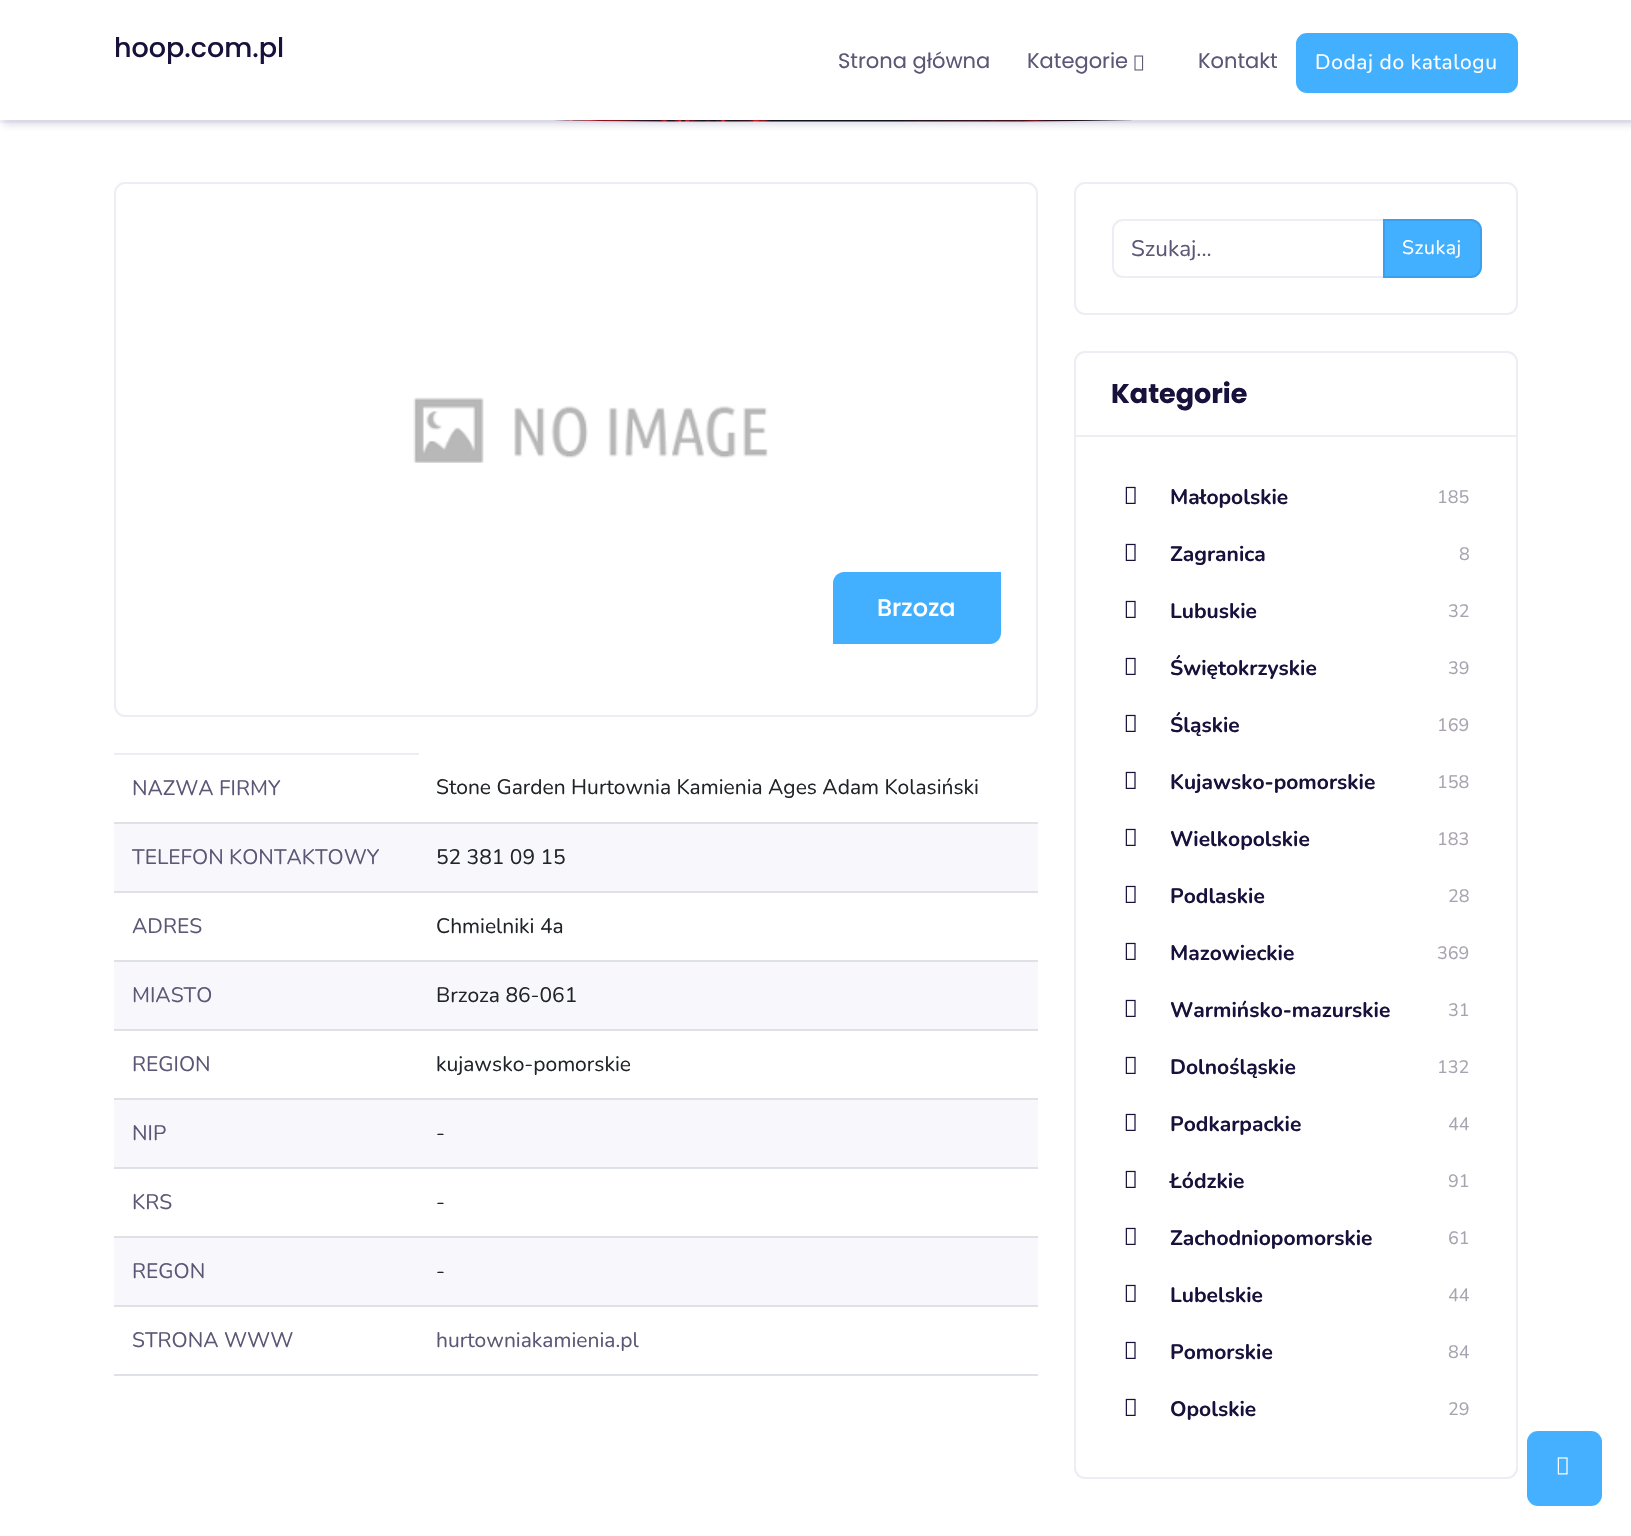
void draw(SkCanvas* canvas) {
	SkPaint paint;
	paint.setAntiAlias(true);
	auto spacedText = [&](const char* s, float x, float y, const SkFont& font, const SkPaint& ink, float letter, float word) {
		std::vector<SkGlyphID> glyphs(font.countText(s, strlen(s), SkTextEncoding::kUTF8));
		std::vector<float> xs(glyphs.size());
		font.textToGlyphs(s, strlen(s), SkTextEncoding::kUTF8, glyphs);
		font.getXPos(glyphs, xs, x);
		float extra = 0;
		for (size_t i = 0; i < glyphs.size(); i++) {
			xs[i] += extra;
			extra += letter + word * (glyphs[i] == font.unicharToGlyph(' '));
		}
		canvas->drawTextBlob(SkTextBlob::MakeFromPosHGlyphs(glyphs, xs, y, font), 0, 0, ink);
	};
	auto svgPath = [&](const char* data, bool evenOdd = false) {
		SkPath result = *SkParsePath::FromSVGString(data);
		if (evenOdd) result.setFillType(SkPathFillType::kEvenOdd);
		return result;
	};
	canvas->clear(0xffffffff);
	canvas->drawImageRect(SkImages::DeferredFromEncodedData(SkData::MakeFromFileName("img2.png")), SkRect::MakeXYWH(552, 120, 580, 2), SkSamplingOptions());
	canvas->save();
	canvas->clipRect(SkRect::MakeXYWH(0, 96, 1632, 27));
	paint.setColor(0xfff5f4f9);
	canvas->drawPath(svgPath("M-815 151H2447V97H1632C819 156 0 97 0 97H-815Z"), paint);
	canvas->restore();
	paint.setColor(0x335c598f);
	paint.setMaskFilter(SkMaskFilter::MakeBlur(kNormal_SkBlurStyle, 3.5));
	canvas->drawRect(SkRect::MakeXYWH(3, 5, 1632, 120), paint);
	paint.setMaskFilter(nullptr);
	paint.setColor(0xffffffff);
	canvas->drawRect(SkRect::MakeXYWH(0, 0, 1631, 120), paint);
	SkFont f1(fontMgr->matchFamilyStyle("Poppins", SkFontStyle(500, SkFontStyle::kNormal_Width, SkFontStyle::kUpright_Slant)), 27);
	f1.setSubpixel(true);
	paint.setColor(0xff18113c);
	canvas->drawString("hoop.com.pl", 114, 57, f1, paint);
	SkFont f2(fontMgr->matchFamilyStyle("Poppins", SkFontStyle::Normal()), 21);
	f2.setSubpixel(true);
	paint.setColor(0xff5c5776);
	canvas->drawString("Strona główna", 838, 68, f2, paint);
	canvas->drawString("Kategorie", 1027, 68, f2, paint);
	canvas->drawImageRect(SkImages::DeferredFromEncodedData(SkData::MakeFromFileName("img1.png")), SkRect::MakeXYWH(1134, 55, 10, 16), SkSamplingOptions());
	canvas->drawString("Kontakt", 1198, 68, f2, paint);
	paint.setColor(0xff42afff);
	canvas->drawRoundRect(SkRect::MakeXYWH(1297, 34, 220, 58), 10, 10, paint);
	paint.setStroke(true);
	paint.setStrokeWidth(2);
	canvas->drawRoundRect(SkRect::MakeXYWH(1297, 34, 220, 58), 10, 10, paint);
	SkFont f3(fontMgr->matchFamilyStyle("Nunito", SkFontStyle::Normal()), 21);
	f3.setSubpixel(true);
	paint.setStroke(false);
	paint.setColor(0xffffffff);
	spacedText("Dodaj do katalogu", 1315, 69, f3, paint, 0.6, 0);
	paint.setStroke(true);
	paint.setColor(0xffededf5);
	canvas->drawRoundRect(SkRect::MakeXYWH(115, 183, 922, 533), 10, 10, paint);
	canvas->drawImageRect(SkImages::DeferredFromEncodedData(SkData::MakeFromFileName("img3.png")), SkRect::MakeXYWH(413, 397, 355, 66), SkSamplingOptions());
	paint.setStroke(false);
	paint.setColor(0xff42afff);
	canvas->drawPath(svgPath("M844 572H1001V633C1001 639 996 644 990 644H833V583C833 577 838 572 844 572Z"), paint);
	SkFont f4(fontMgr->matchFamilyStyle("Poppins", SkFontStyle(500, SkFontStyle::kNormal_Width, SkFontStyle::kUpright_Slant)), 24);
	f4.setSubpixel(true);
	paint.setColor(0xffffffff);
	canvas->drawString("Brzoza", 877, 616, f4, paint);
	paint.setColor(0xffededf5);
	canvas->drawRect(SkRect::MakeXYWH(114, 753, 305, 2), paint);
	paint.setColor(0xff5c5776);
	canvas->drawString("NAZWA FIRMY", 132, 795, f3, paint);
	paint.setColor(0xffdee2e6);
	canvas->drawRect(SkRect::MakeXYWH(114, 822, 924, 2), paint);
	paint.setColor(0xff212529);
	canvas->drawString("Stone Garden Hurtownia Kamienia Ages Adam Kolasiński", 436, 794, f3, paint);
	paint.setColor(0xfff8f7fb);
	canvas->drawRect(SkRect::MakeXYWH(114, 824, 924, 67), paint);
	paint.setColor(0xff5c5776);
	canvas->drawString("TELEFON KONTAKTOWY", 132, 864, f3, paint);
	paint.setColor(0xffdee2e6);
	canvas->drawRect(SkRect::MakeXYWH(114, 891, 924, 2), paint);
	paint.setColor(0xff212529);
	canvas->drawString("52 381 09 15", 436, 864, f3, paint);
	paint.setColor(0xff5c5776);
	canvas->drawString("ADRES", 132, 933, f3, paint);
	paint.setColor(0xffdee2e6);
	canvas->drawRect(SkRect::MakeXYWH(114, 960, 924, 2), paint);
	paint.setColor(0xff212529);
	canvas->drawString("Chmielniki 4a", 436, 933, f3, paint);
	paint.setColor(0xfff8f7fb);
	canvas->drawRect(SkRect::MakeXYWH(114, 962, 924, 67), paint);
	paint.setColor(0xff5c5776);
	canvas->drawString("MIASTO", 132, 1002, f3, paint);
	paint.setColor(0xffdee2e6);
	canvas->drawRect(SkRect::MakeXYWH(114, 1029, 924, 2), paint);
	paint.setColor(0xff212529);
	canvas->drawString("Brzoza 86-061", 436, 1002, f3, paint);
	paint.setColor(0xff5c5776);
	canvas->drawString("REGION", 132, 1071, f3, paint);
	paint.setColor(0xffdee2e6);
	canvas->drawRect(SkRect::MakeXYWH(114, 1098, 924, 2), paint);
	paint.setColor(0xff212529);
	canvas->drawString("kujawsko-pomorskie", 436, 1071, f3, paint);
	paint.setColor(0xfff8f7fb);
	canvas->drawRect(SkRect::MakeXYWH(114, 1100, 924, 67), paint);
	paint.setColor(0xff5c5776);
	canvas->drawString("NIP", 132, 1140, f3, paint);
	paint.setColor(0xffdee2e6);
	canvas->drawRect(SkRect::MakeXYWH(114, 1167, 924, 2), paint);
	paint.setColor(0xff212529);
	canvas->drawString("-", 436, 1140, f3, paint);
	paint.setColor(0xff5c5776);
	canvas->drawString("KRS", 132, 1209, f3, paint);
	paint.setColor(0xffdee2e6);
	canvas->drawRect(SkRect::MakeXYWH(114, 1236, 924, 2), paint);
	paint.setColor(0xff212529);
	canvas->drawString("-", 436, 1209, f3, paint);
	paint.setColor(0xfff8f7fb);
	canvas->drawRect(SkRect::MakeXYWH(114, 1238, 924, 67), paint);
	paint.setColor(0xff5c5776);
	canvas->drawString("REGON", 132, 1278, f3, paint);
	paint.setColor(0xffdee2e6);
	canvas->drawRect(SkRect::MakeXYWH(114, 1305, 924, 2), paint);
	paint.setColor(0xff212529);
	canvas->drawString("-", 436, 1278, f3, paint);
	paint.setColor(0xff5c5776);
	canvas->drawString("STRONA WWW", 132, 1347, f3, paint);
	paint.setColor(0xffdee2e6);
	canvas->drawRect(SkRect::MakeXYWH(114, 1374, 924, 2), paint);
	paint.setColor(0xff5c5776);
	canvas->drawString("hurtowniakamienia.pl", 436, 1347, f3, paint);
	paint.setStroke(true);
	paint.setColor(0xffededf5);
	canvas->drawRoundRect(SkRect::MakeXYWH(1075, 183, 442, 131), 10, 10, paint);
	canvas->drawPath(svgPath("M1123 220H1384V277H1123C1117.5 277 1113 272.5 1113 267V230C1113 224.5 1117.5 220 1123 220Z"), paint);
	SkFont f5(fontMgr->matchFamilyStyle("Nunito", SkFontStyle::Normal()), 22.5);
	f5.setSubpixel(true);
	paint.setStroke(false);
	paint.setColor(0xff5c5776);
	canvas->drawString("Szukaj...", 1131, 256, f5, paint);
	paint.setColor(0xff42afff);
	canvas->drawPath(svgPath("M1383 219H1471C1477 219 1482 224 1482 230V267C1482 273 1477 278 1471 278H1383Z"), paint);
	paint.setStroke(true);
	paint.setColor(0x1f002864);
	canvas->drawPath(svgPath("M1384 220H1471C1476.5 220 1481 224.5 1481 230V267C1481 272.5 1476.5 277 1471 277H1384Z"), paint);
	SkFont f6(fontMgr->matchFamilyStyle("Nunito", SkFontStyle::Normal()), 19.5);
	f6.setSubpixel(true);
	paint.setStroke(false);
	paint.setColor(0xffffffff);
	spacedText("Szukaj", 1402, 254, f6, paint, 0.5, 0);
	paint.setStroke(true);
	paint.setColor(0xffededf5);
	canvas->drawRoundRect(SkRect::MakeXYWH(1075, 352, 442, 1126), 10, 10, paint);
	paint.setStroke(false);
	canvas->drawRect(SkRect::MakeXYWH(1076, 435, 441, 2), paint);
	SkFont f7(fontMgr->matchFamilyStyle("Poppins", SkFontStyle::Bold()), 27);
	f7.setSubpixel(true);
	paint.setColor(0xff18113c);
	canvas->drawString("Kategorie", 1111, 403, f7, paint);
	canvas->drawImageRect(SkImages::DeferredFromEncodedData(SkData::MakeFromFileName("img4.png")), SkRect::MakeXYWH(1125, 486, 11, 18), SkSamplingOptions());
	SkFont f8(fontMgr->matchFamilyStyle("Nunito", SkFontStyle::Bold()), 21);
	f8.setSubpixel(true);
	canvas->drawString("Małopolskie", 1170, 504, f8, paint);
	SkFont f9(fontMgr->matchFamilyStyle("Nunito", SkFontStyle::Normal()), 18);
	f9.setSubpixel(true);
	paint.setColor(0xffa8a3b0);
	canvas->drawString("185", 1437, 503, f9, paint);
	canvas->drawImageRect(SkImages::DeferredFromEncodedData(SkData::MakeFromFileName("img4.png")), SkRect::MakeXYWH(1125, 543, 11, 18), SkSamplingOptions());
	paint.setColor(0xff18113c);
	canvas->drawString("Zagranica", 1170, 561, f8, paint);
	paint.setColor(0xffa8a3b0);
	canvas->drawString("8", 1459, 560, f9, paint);
	canvas->drawImageRect(SkImages::DeferredFromEncodedData(SkData::MakeFromFileName("img4.png")), SkRect::MakeXYWH(1125, 600, 11, 18), SkSamplingOptions());
	paint.setColor(0xff18113c);
	canvas->drawString("Lubuskie", 1170, 618, f8, paint);
	paint.setColor(0xffa8a3b0);
	canvas->drawString("32", 1448, 617, f9, paint);
	canvas->drawImageRect(SkImages::DeferredFromEncodedData(SkData::MakeFromFileName("img4.png")), SkRect::MakeXYWH(1125, 657, 11, 18), SkSamplingOptions());
	paint.setColor(0xff18113c);
	canvas->drawString("Świętokrzyskie", 1170, 675, f8, paint);
	paint.setColor(0xffa8a3b0);
	canvas->drawString("39", 1448, 674, f9, paint);
	canvas->drawImageRect(SkImages::DeferredFromEncodedData(SkData::MakeFromFileName("img4.png")), SkRect::MakeXYWH(1125, 714, 11, 18), SkSamplingOptions());
	paint.setColor(0xff18113c);
	canvas->drawString("Śląskie", 1170, 732, f8, paint);
	paint.setColor(0xffa8a3b0);
	canvas->drawString("169", 1437, 731, f9, paint);
	canvas->drawImageRect(SkImages::DeferredFromEncodedData(SkData::MakeFromFileName("img4.png")), SkRect::MakeXYWH(1125, 771, 11, 18), SkSamplingOptions());
	paint.setColor(0xff18113c);
	canvas->drawString("Kujawsko-pomorskie", 1170, 789, f8, paint);
	paint.setColor(0xffa8a3b0);
	canvas->drawString("158", 1437, 788, f9, paint);
	canvas->drawImageRect(SkImages::DeferredFromEncodedData(SkData::MakeFromFileName("img4.png")), SkRect::MakeXYWH(1125, 828, 11, 18), SkSamplingOptions());
	paint.setColor(0xff18113c);
	canvas->drawString("Wielkopolskie", 1170, 846, f8, paint);
	paint.setColor(0xffa8a3b0);
	canvas->drawString("183", 1437, 845, f9, paint);
	canvas->drawImageRect(SkImages::DeferredFromEncodedData(SkData::MakeFromFileName("img4.png")), SkRect::MakeXYWH(1125, 885, 11, 18), SkSamplingOptions());
	paint.setColor(0xff18113c);
	canvas->drawString("Podlaskie", 1170, 903, f8, paint);
	paint.setColor(0xffa8a3b0);
	canvas->drawString("28", 1448, 902, f9, paint);
	canvas->drawImageRect(SkImages::DeferredFromEncodedData(SkData::MakeFromFileName("img4.png")), SkRect::MakeXYWH(1125, 942, 11, 18), SkSamplingOptions());
	paint.setColor(0xff18113c);
	canvas->drawString("Mazowieckie", 1170, 960, f8, paint);
	paint.setColor(0xffa8a3b0);
	canvas->drawString("369", 1437, 959, f9, paint);
	canvas->drawImageRect(SkImages::DeferredFromEncodedData(SkData::MakeFromFileName("img4.png")), SkRect::MakeXYWH(1125, 999, 11, 18), SkSamplingOptions());
	paint.setColor(0xff18113c);
	canvas->drawString("Warmińsko-mazurskie", 1170, 1017, f8, paint);
	paint.setColor(0xffa8a3b0);
	canvas->drawString("31", 1448, 1016, f9, paint);
	canvas->drawImageRect(SkImages::DeferredFromEncodedData(SkData::MakeFromFileName("img4.png")), SkRect::MakeXYWH(1125, 1056, 11, 18), SkSamplingOptions());
	paint.setColor(0xff18113c);
	canvas->drawString("Dolnośląskie", 1170, 1074, f8, paint);
	paint.setColor(0xffa8a3b0);
	canvas->drawString("132", 1437, 1073, f9, paint);
	canvas->drawImageRect(SkImages::DeferredFromEncodedData(SkData::MakeFromFileName("img4.png")), SkRect::MakeXYWH(1125, 1113, 11, 18), SkSamplingOptions());
	paint.setColor(0xff18113c);
	canvas->drawString("Podkarpackie", 1170, 1131, f8, paint);
	paint.setColor(0xffa8a3b0);
	canvas->drawString("44", 1448, 1130, f9, paint);
	canvas->drawImageRect(SkImages::DeferredFromEncodedData(SkData::MakeFromFileName("img4.png")), SkRect::MakeXYWH(1125, 1170, 11, 18), SkSamplingOptions());
	paint.setColor(0xff18113c);
	canvas->drawString("Łódzkie", 1170, 1188, f8, paint);
	paint.setColor(0xffa8a3b0);
	canvas->drawString("91", 1448, 1187, f9, paint);
	canvas->drawImageRect(SkImages::DeferredFromEncodedData(SkData::MakeFromFileName("img4.png")), SkRect::MakeXYWH(1125, 1227, 11, 18), SkSamplingOptions());
	paint.setColor(0xff18113c);
	canvas->drawString("Zachodniopomorskie", 1170, 1245, f8, paint);
	paint.setColor(0xffa8a3b0);
	canvas->drawString("61", 1448, 1244, f9, paint);
	canvas->drawImageRect(SkImages::DeferredFromEncodedData(SkData::MakeFromFileName("img4.png")), SkRect::MakeXYWH(1125, 1284, 11, 18), SkSamplingOptions());
	paint.setColor(0xff18113c);
	canvas->drawString("Lubelskie", 1170, 1302, f8, paint);
	paint.setColor(0xffa8a3b0);
	canvas->drawString("44", 1448, 1301, f9, paint);
	canvas->drawImageRect(SkImages::DeferredFromEncodedData(SkData::MakeFromFileName("img4.png")), SkRect::MakeXYWH(1125, 1341, 11, 18), SkSamplingOptions());
	paint.setColor(0xff18113c);
	canvas->drawString("Pomorskie", 1170, 1359, f8, paint);
	paint.setColor(0xffa8a3b0);
	canvas->drawString("84", 1448, 1358, f9, paint);
	canvas->drawImageRect(SkImages::DeferredFromEncodedData(SkData::MakeFromFileName("img4.png")), SkRect::MakeXYWH(1125, 1398, 11, 18), SkSamplingOptions());
	paint.setColor(0xff18113c);
	canvas->drawString("Opolskie", 1170, 1416, f8, paint);
	paint.setColor(0xffa8a3b0);
	canvas->drawString("29", 1448, 1415, f9, paint);
	paint.setColor(0xff44b0ff);
	canvas->drawRoundRect(SkRect::MakeXYWH(1527, 1431, 75, 75), 11, 11, paint);
	canvas->drawImageRect(SkImages::DeferredFromEncodedData(SkData::MakeFromFileName("img5.png")), SkRect::MakeXYWH(1557, 1457, 11, 18), SkSamplingOptions());
}
